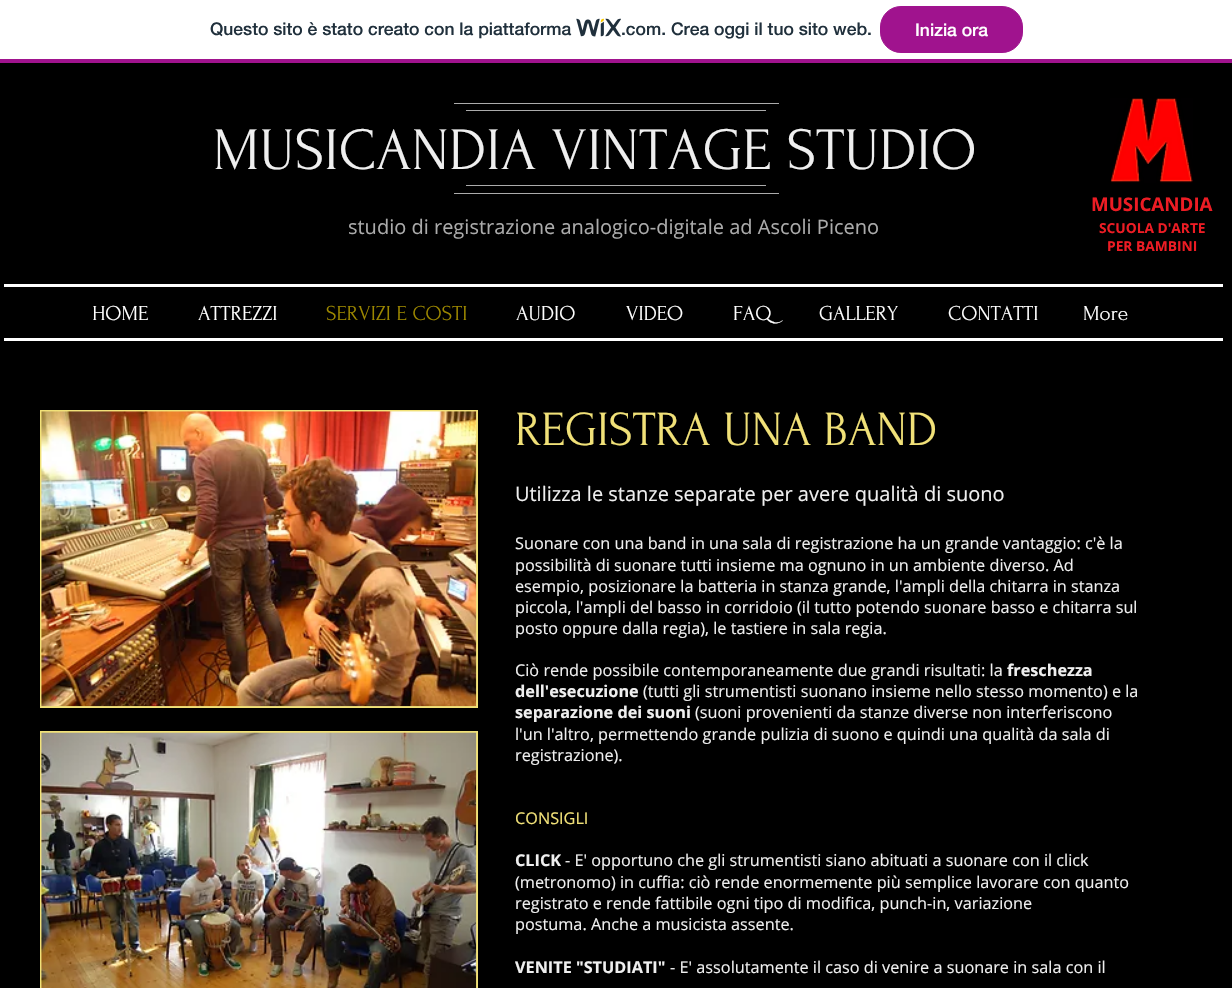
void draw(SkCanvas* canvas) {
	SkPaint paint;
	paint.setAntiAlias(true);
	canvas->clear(0xffffffff);
	paint.setColor(0xffa0138e);
	canvas->drawRect(SkRect::MakeXYWH(0, 59, 1232, 4), paint);
	SkFont f1(fontMgr->matchFamilyStyle("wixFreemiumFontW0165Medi", SkFontStyle(500, SkFontStyle::kNormal_Width, SkFontStyle::kUpright_Slant)), 17.5);
	f1.setSubpixel(true);
	paint.setColor(0xff20303c);
	canvas->drawString("Questo sito è stato creato con la piattaforma", 210, 35, f1, paint);
	canvas->drawImageRect(SkImages::DeferredFromEncodedData(SkData::MakeFromFileName("img1.png")), SkRect::MakeXYWH(576, 18, 45, 19), SkSamplingOptions());
	canvas->drawString(".com. Crea oggi il tuo sito web.", 621, 35, f1, paint);
	paint.setColor(0xffa0138e);
	canvas->drawRoundRect(SkRect::MakeXYWH(880.5, 6.5, 142, 46), 20.5, 20.5, paint);
	paint.setStroke(true);
	paint.setStrokeWidth(1);
	canvas->drawRoundRect(SkRect::MakeXYWH(880.5, 6.5, 142, 46), 20.5, 20.5, paint);
	paint.setStroke(false);
	paint.setColor(0xffffffff);
	canvas->drawString("Inizia ora", 915, 36, f1, paint);
	paint.setColor(0xff000000);
	canvas->drawRect(SkRect::MakeXYWH(0, 63, 1232, 925), paint);
	paint.setColor(0xffababab);
	canvas->drawRect(SkRect::MakeXYWH(454, 103, 325, 1), paint);
	canvas->drawImageRect(SkImages::DeferredFromEncodedData(SkData::MakeFromFileName("img2.png")), SkRect::MakeXYWH(1110, 98, 83, 85), SkSamplingOptions());
	canvas->drawRect(SkRect::MakeXYWH(466, 110, 300, 1), paint);
	SkFont f2(fontMgr->matchFamilyStyle("Forum", SkFontStyle::Normal()), 60);
	f2.setSubpixel(true);
	paint.setColor(0xffefefef);
	canvas->drawString("MUSICANDIA VINTAGE STUDIO", 213, 169, f2, paint);
	paint.setColor(0xffababab);
	canvas->drawRect(SkRect::MakeXYWH(466, 185, 300, 1), paint);
	canvas->drawRect(SkRect::MakeXYWH(454, 193, 325, 1), paint);
	SkFont f3(fontMgr->matchFamilyStyle("Open Sans", SkFontStyle::Normal()), 20);
	f3.setSubpixel(true);
	canvas->drawString("studio di registrazione analogico-digitale ad Ascoli Piceno", 348, 234, f3, paint);
	SkFont f4(fontMgr->matchFamilyStyle("Open Sans", SkFontStyle::Bold()), 18.75);
	f4.setSubpixel(true);
	paint.setColor(0xffed1c24);
	canvas->drawString("MUSICANDIA", 1091, 211, f4, paint);
	SkFont f5(fontMgr->matchFamilyStyle("Open Sans", SkFontStyle::Bold()), 13.75);
	f5.setSubpixel(true);
	canvas->drawString("SCUOLA D'ARTE", 1099, 233, f5, paint);
	canvas->drawString("PER BAMBINI", 1107, 251, f5, paint);
	paint.setColor(0xffffffff);
	canvas->drawRect(SkRect::MakeXYWH(4, 284, 1219, 3), paint);
	SkFont f6(fontMgr->matchFamilyStyle("Forum", SkFontStyle::Normal()), 21.25);
	f6.setSubpixel(true);
	canvas->drawString("HOME", 92, 320, f6, paint);
	canvas->drawString("ATTREZZI", 198, 320, f6, paint);
	paint.setColor(0xff9c8700);
	canvas->drawString("SERVIZI E COSTI", 326, 320, f6, paint);
	paint.setColor(0xffffffff);
	canvas->drawString("AUDIO", 516, 320, f6, paint);
	canvas->drawString("VIDEO", 626, 320, f6, paint);
	canvas->drawString("FAQ", 733, 320, f6, paint);
	canvas->drawString("GALLERY", 819, 320, f6, paint);
	canvas->drawString("CONTATTI", 948, 320, f6, paint);
	canvas->drawString("More", 1083, 320, f6, paint);
	canvas->drawRect(SkRect::MakeXYWH(4, 338, 1219, 3), paint);
	paint.setColor(0xfff1e178);
	canvas->drawRect(SkRect::MakeXYWH(40, 410, 438, 298), paint);
	canvas->drawImageRect(SkImages::DeferredFromEncodedData(SkData::MakeFromFileName("img3.png")), SkRect::MakeXYWH(41, 411, 436, 296), SkSamplingOptions());
	SkFont f7(fontMgr->matchFamilyStyle("Forum", SkFontStyle::Normal()), 48.75);
	f7.setSubpixel(true);
	canvas->drawString("REGISTRA UNA BAND", 515, 445, f7, paint);
	canvas->drawRect(SkRect::MakeXYWH(40, 731, 438, 257), paint);
	canvas->drawImageRect(SkImages::DeferredFromEncodedData(SkData::MakeFromFileName("img4.png")), SkRect::MakeXYWH(41, 732, 436, 256), SkSamplingOptions());
	paint.setColor(0xffefefef);
	canvas->drawString("Utilizza le stanze separate per avere qualità di suono", 515, 501, f3, paint);
	SkFont f8(fontMgr->matchFamilyStyle("Open Sans", SkFontStyle::Normal()), 16.25);
	f8.setSubpixel(true);
	canvas->drawString("Suonare con una band in una sala di registrazione ha un grande vantaggio: c'è la", 515, 549, f8, paint);
	canvas->drawString("possibilità di suonare tutti insieme ma ognuno in un ambiente diverso. Ad", 515, 571, f8, paint);
	canvas->drawString("esempio, posizionare la batteria in stanza grande, l'ampli della chitarra in stanza", 515, 592, f8, paint);
	canvas->drawString("piccola, l'ampli del basso in corridoio (il tutto potendo suonare basso e chitarra sul", 515, 613, f8, paint);
	canvas->drawString("posto oppure dalla regia), le tastiere in sala regia.", 515, 634, f8, paint);
	canvas->drawString("Ciò rende possibile contemporaneamente due grandi risultati: la", 515, 676, f8, paint);
	SkFont f9(fontMgr->matchFamilyStyle("Open Sans", SkFontStyle::Bold()), 16.25);
	f9.setSubpixel(true);
	canvas->drawString("freschezza", 1007, 676, f9, paint);
	canvas->drawString("dell'esecuzione", 515, 697, f9, paint);
	canvas->drawString("(tutti gli strumentisti suonano insieme nello stesso momento) e la", 643, 697, f8, paint);
	canvas->drawString("separazione dei suoni", 515, 718, f9, paint);
	canvas->drawString("(suoni provenienti da stanze diverse non interferiscono", 695, 718, f8, paint);
	canvas->drawString("l'un l'altro, permettendo grande pulizia di suono e quindi una qualità da sala di", 515, 740, f8, paint);
	canvas->drawString("registrazione).", 515, 761, f8, paint);
	paint.setColor(0xfff1e178);
	canvas->drawString("CONSIGLI", 515, 824, f8, paint);
	paint.setColor(0xffefefef);
	canvas->drawString("CLICK", 515, 866, f9, paint);
	canvas->drawString("- E' opportuno che gli strumentisti siano abituati a suonare con il click", 565, 866, f8, paint);
	canvas->drawString("(metronomo) in cuffia: ciò rende enormemente più semplice lavorare con quanto", 515, 888, f8, paint);
	canvas->drawString("registrato e rende fattibile ogni tipo di modifica, punch-in, variazione", 515, 909, f8, paint);
	canvas->drawString("postuma. Anche a musicista assente.", 515, 930, f8, paint);
	canvas->drawString("VENITE \"STUDIATI\"", 515, 973, f9, paint);
	canvas->drawString("- E' assolutamente il caso di venire a suonare in sala con il", 670, 973, f8, paint);
}
